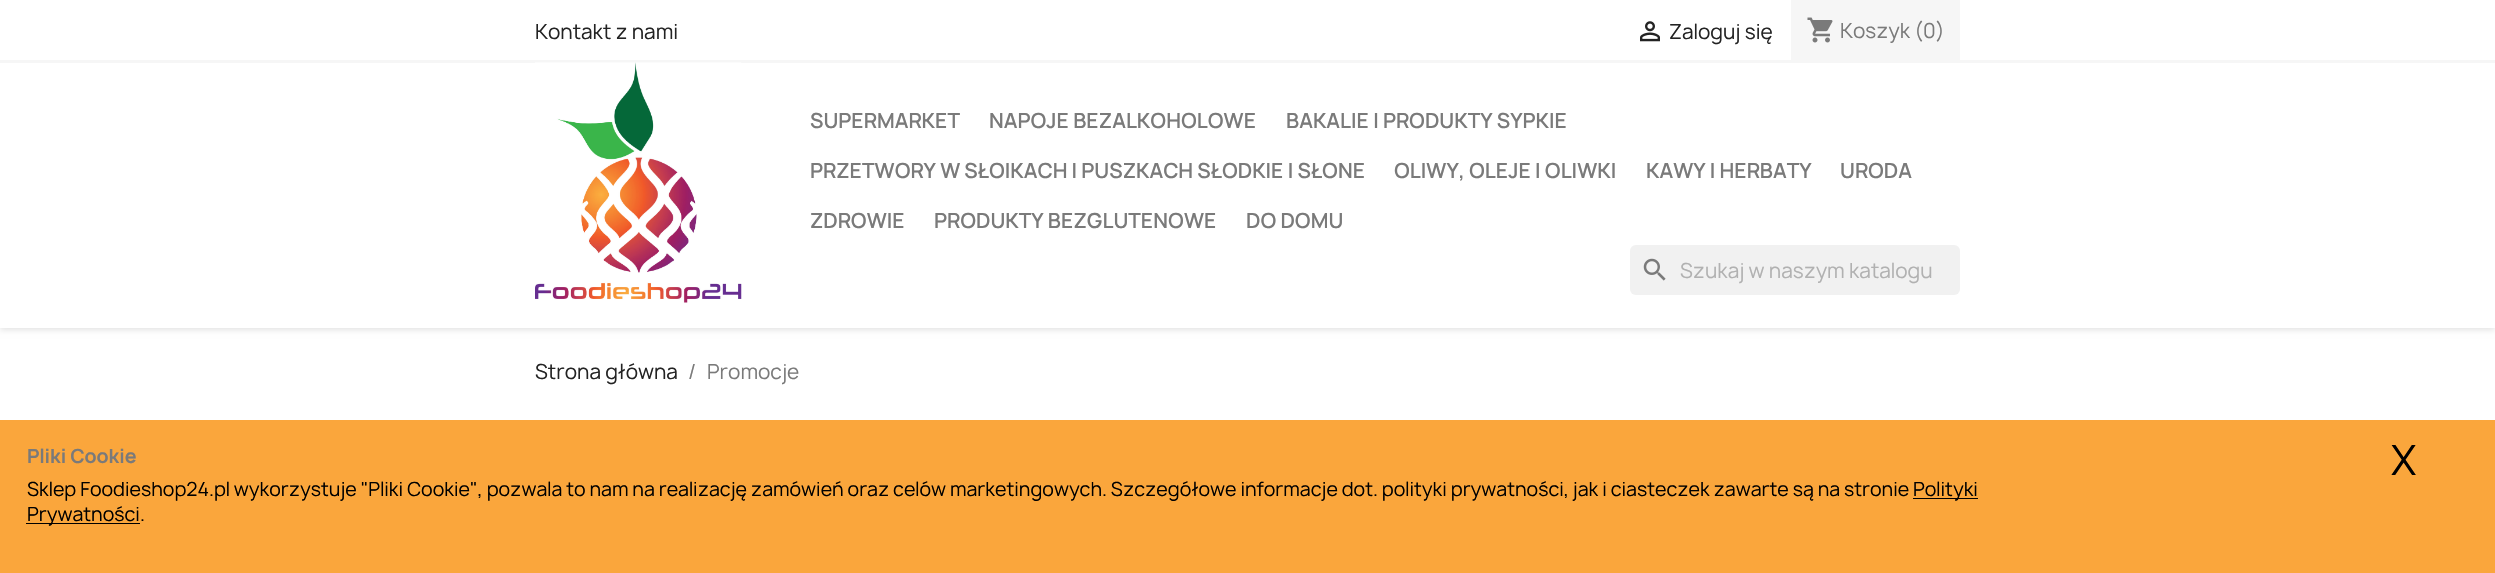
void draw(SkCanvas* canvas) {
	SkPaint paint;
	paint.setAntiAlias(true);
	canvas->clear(0xffffffff);
	paint.setColor(0x1c000000);
	paint.setMaskFilter(SkMaskFilter::MakeBlur(kNormal_SkBlurStyle, 3));
	canvas->drawRect(SkRect::MakeXYWH(0, 3, 2495, 327), paint);
	paint.setMaskFilter(nullptr);
	paint.setColor(0xffffffff);
	canvas->drawRect(SkRect::MakeXYWH(0, 0, 2495, 328), paint);
	paint.setColor(0xfff6f6f6);
	canvas->drawRect(SkRect::MakeXYWH(0, 60, 2495, 3), paint);
	SkFont f1(fontMgr->matchFamilyStyle("Manrope", SkFontStyle::Normal()), 20);
	f1.setSubpixel(true);
	paint.setColor(0xff232323);
	canvas->drawString("Kontakt z nami", 535, 39, f1, paint);
	canvas->drawImageRect(SkImages::DeferredFromEncodedData(SkData::MakeFromFileName("img1.png")), SkRect::MakeXYWH(1640, 21, 20, 21), SkSamplingOptions());
	canvas->drawString("Zaloguj się", 1669, 39, f1, paint);
	paint.setColor(0xfff6f6f6);
	canvas->drawRect(SkRect::MakeXYWH(1791, 0, 169, 60), paint);
	canvas->drawImageRect(SkImages::DeferredFromEncodedData(SkData::MakeFromFileName("img2.png")), SkRect::MakeXYWH(1807, 17, 26, 26), SkSamplingOptions());
	paint.setColor(0xff7a7a7a);
	canvas->drawString("Koszyk (0)", 1840, 38, f1, paint);
	canvas->drawImageRect(SkImages::DeferredFromEncodedData(SkData::MakeFromFileName("img3.png")), SkRect::MakeXYWH(535, 62, 207, 241), SkSamplingOptions());
	SkFont f2(fontMgr->matchFamilyStyle("Manrope", SkFontStyle(600, SkFontStyle::kNormal_Width, SkFontStyle::kUpright_Slant)), 20);
	f2.setSubpixel(true);
	canvas->drawString("SUPERMARKET", 810, 128, f2, paint);
	canvas->drawString("NAPOJE BEZALKOHOLOWE", 989, 128, f2, paint);
	canvas->drawString("BAKALIE I PRODUKTY SYPKIE", 1286, 128, f2, paint);
	canvas->drawString("PRZETWORY W SŁOIKACH I PUSZKACH SŁODKIE I SŁONE", 810, 178, f2, paint);
	canvas->drawString("OLIWY, OLEJE I OLIWKI", 1394, 178, f2, paint);
	canvas->drawString("KAWY I HERBATY", 1646, 178, f2, paint);
	canvas->drawString("URODA", 1840, 178, f2, paint);
	canvas->drawString("ZDROWIE", 810, 228, f2, paint);
	canvas->drawString("PRODUKTY BEZGLUTENOWE", 934, 228, f2, paint);
	canvas->drawString("DO DOMU", 1246, 228, f2, paint);
	paint.setColor(0xfff1f1f1);
	canvas->drawRoundRect(SkRect::MakeXYWH(1630, 245, 330, 50), 6, 6, paint);
	canvas->drawImageRect(SkImages::DeferredFromEncodedData(SkData::MakeFromFileName("img4.png")), SkRect::MakeXYWH(1643, 258, 23, 23), SkSamplingOptions());
	paint.setColor(0xffb1b1b1);
	canvas->drawString("Szukaj w naszym katalogu", 1680, 278, f1, paint);
	paint.setColor(0xfffaa63c);
	canvas->drawRect(SkRect::MakeXYWH(0, 420, 2495, 153), paint);
	SkFont f3(fontMgr->matchFamilyStyle("Manrope", SkFontStyle::Bold()), 18.75);
	f3.setSubpixel(true);
	paint.setColor(0xff7a7a7a);
	canvas->drawString("Pliki Cookie", 27, 463, f3, paint);
	SkFont f4(fontMgr->matchFamilyStyle("Manrope", SkFontStyle::Normal()), 18.75);
	f4.setSubpixel(true);
	paint.setColor(0xff000000);
	canvas->drawString("Sklep Foodieshop24.pl wykorzystuje \"Pliki Cookie\", pozwala to nam na realizację zamówień oraz celów marketingowych. Szczegółowe informacje dot. polityki prywatności, jak i ciasteczek zawarte są na stronie", 27, 496, f4, paint);
	canvas->drawRect(SkRect::MakeXYWH(1913, 498, 65, 1), paint);
	canvas->drawString("Polityki", 1913, 496, f4, paint);
	canvas->drawRect(SkRect::MakeXYWH(26, 523, 114, 1), paint);
	canvas->drawString("Prywatności.", 27, 521, f4, paint);
	SkFont f5(fontMgr->matchFamilyStyle("Manrope", SkFontStyle::Normal()), 40);
	f5.setSubpixel(true);
	canvas->drawString("X", 2391, 475, f5, paint);
	paint.setColor(0xff232323);
	canvas->drawString("Strona główna", 535, 379, f1, paint);
	paint.setColor(0xff7a7a7a);
	canvas->drawString("/", 688, 379, f1, paint);
	canvas->drawString("Promocje", 707, 379, f1, paint);
}
